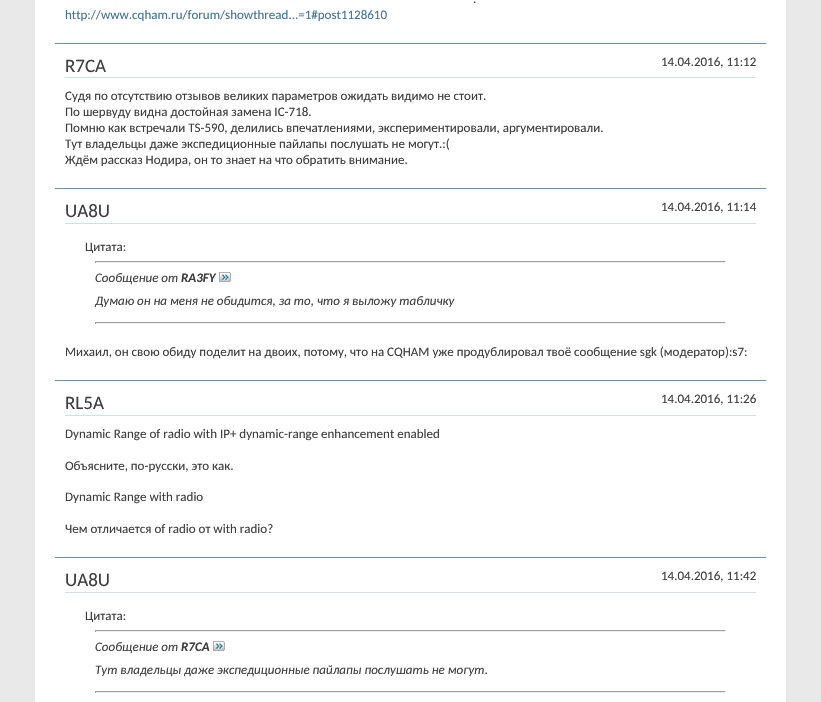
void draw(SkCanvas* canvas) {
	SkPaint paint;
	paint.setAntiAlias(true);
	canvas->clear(0xffe9e9e9);
	paint.setColor(0xffffffff);
	canvas->drawRect(SkRect::MakeXYWH(35, 0, 751, 702), paint);
	SkFont f1(fontMgr->matchFamilyStyle("Carlito", SkFontStyle::Normal()), 13);
	f1.setSubpixel(true);
	paint.setColor(0xff3e3e3e);
	canvas->drawString(".", 473, 3, f1, paint);
	paint.setColor(0xff417394);
	canvas->drawString("http://www.cqham.ru/forum/showthread...=1#post1128610", 65, 19, f1, paint);
	paint.setColor(0xff6b91ab);
	canvas->drawRect(SkRect::MakeXYWH(55, 43, 711, 1), paint);
	paint.setColor(0xffcedfeb);
	canvas->drawRect(SkRect::MakeXYWH(65, 77, 691, 1), paint);
	SkFont f2(fontMgr->matchFamilyStyle("Carlito", SkFontStyle::Normal()), 19);
	f2.setSubpixel(true);
	paint.setColor(0xff3e3e3e);
	canvas->drawString("R7CA", 65, 72, f2, paint);
	canvas->drawString("14.04.2016, 11:12", 661, 66, f1, paint);
	canvas->drawString("Судя по отсутствию отзывов великих параметров ожидать видимо не стоит.", 65, 100, f1, paint);
	canvas->drawString("По шервуду видна достойная замена IC-718.", 65, 116, f1, paint);
	canvas->drawString("Помню как встречали TS-590, делились впечатлениями, экспериментировали, аргументировали.", 65, 132, f1, paint);
	canvas->drawString("Тут владельцы даже экспедиционные пайлапы послушать не могут.:(", 65, 148, f1, paint);
	canvas->drawString("Ждём рассказ Нодира, он то знает на что обратить внимание.", 65, 164, f1, paint);
	paint.setColor(0xff6b91ab);
	canvas->drawRect(SkRect::MakeXYWH(55, 188, 711, 1), paint);
	paint.setColor(0xffcedfeb);
	canvas->drawRect(SkRect::MakeXYWH(65, 223, 691, 1), paint);
	paint.setColor(0xff3e3e3e);
	canvas->drawString("UA8U", 65, 217, f2, paint);
	canvas->drawString("14.04.2016, 11:14", 661, 211, f1, paint);
	canvas->drawString("Цитата:", 85, 251, f1, paint);
	paint.setColor(0xff9f9f9f);
	canvas->drawRect(SkRect::MakeXYWH(95, 261, 631, 1), paint);
	paint.setColor(0xffeeeeee);
	canvas->drawRect(SkRect::MakeXYWH(725, 261, 1, 2), paint);
	canvas->drawRect(SkRect::MakeXYWH(95, 262, 631, 1), paint);
	paint.setColor(0xff9f9f9f);
	canvas->drawRect(SkRect::MakeXYWH(95, 261, 1, 2), paint);
	SkFont f3(fontMgr->matchFamilyStyle("Carlito", SkFontStyle::Italic()), 13);
	f3.setSubpixel(true);
	paint.setColor(0xff3e3e3e);
	canvas->drawString("Сообщение от", 95, 282, f3, paint);
	SkFont f4(fontMgr->matchFamilyStyle("Carlito", SkFontStyle::BoldItalic()), 13);
	f4.setSubpixel(true);
	canvas->drawString("RA3FY", 181, 282, f4, paint);
	canvas->drawImageRect(SkImages::DeferredFromEncodedData(SkData::MakeFromFileName("img1.png")), SkRect::MakeXYWH(219, 272, 12, 10), SkSamplingOptions());
	canvas->drawString("Думаю он на меня не обидится, за то, что я выложу табличку", 95, 305, f3, paint);
	paint.setColor(0xff9f9f9f);
	canvas->drawRect(SkRect::MakeXYWH(95, 322, 631, 1), paint);
	paint.setColor(0xffeeeeee);
	canvas->drawRect(SkRect::MakeXYWH(725, 322, 1, 2), paint);
	canvas->drawRect(SkRect::MakeXYWH(95, 323, 631, 1), paint);
	paint.setColor(0xff9f9f9f);
	canvas->drawRect(SkRect::MakeXYWH(95, 322, 1, 2), paint);
	paint.setColor(0xff3e3e3e);
	canvas->drawString("Михаил, он свою обиду поделит на двоих, потому, что на CQHAM уже продублировал твоё сообщение sgk (модератор):s7:", 65, 356, f1, paint);
	paint.setColor(0xff6b91ab);
	canvas->drawRect(SkRect::MakeXYWH(55, 380, 711, 1), paint);
	paint.setColor(0xffcedfeb);
	canvas->drawRect(SkRect::MakeXYWH(65, 415, 691, 1), paint);
	paint.setColor(0xff3e3e3e);
	canvas->drawString("RL5A", 65, 409, f2, paint);
	canvas->drawString("14.04.2016, 11:26", 661, 403, f1, paint);
	canvas->drawString("Dynamic Range of radio with IP+ dynamic-range enhancement enabled", 65, 438, f1, paint);
	canvas->drawString("Объясните, по-русски, это как.", 65, 470, f1, paint);
	canvas->drawString("Dynamic Range with radio", 65, 501, f1, paint);
	canvas->drawString("Чем отличается of radio от with radio?", 65, 533, f1, paint);
	paint.setColor(0xff6b91ab);
	canvas->drawRect(SkRect::MakeXYWH(55, 557, 711, 1), paint);
	paint.setColor(0xffcedfeb);
	canvas->drawRect(SkRect::MakeXYWH(65, 592, 691, 1), paint);
	paint.setColor(0xff3e3e3e);
	canvas->drawString("UA8U", 65, 586, f2, paint);
	canvas->drawString("14.04.2016, 11:42", 661, 580, f1, paint);
	canvas->drawString("Цитата:", 85, 620, f1, paint);
	paint.setColor(0xff9f9f9f);
	canvas->drawRect(SkRect::MakeXYWH(95, 630, 631, 1), paint);
	paint.setColor(0xffeeeeee);
	canvas->drawRect(SkRect::MakeXYWH(725, 630, 1, 2), paint);
	canvas->drawRect(SkRect::MakeXYWH(95, 631, 631, 1), paint);
	paint.setColor(0xff9f9f9f);
	canvas->drawRect(SkRect::MakeXYWH(95, 630, 1, 2), paint);
	paint.setColor(0xff3e3e3e);
	canvas->drawString("Сообщение от", 95, 651, f3, paint);
	canvas->drawString("R7CA", 181, 651, f4, paint);
	canvas->drawImageRect(SkImages::DeferredFromEncodedData(SkData::MakeFromFileName("img1.png")), SkRect::MakeXYWH(213, 641, 12, 10), SkSamplingOptions());
	canvas->drawString("Тут владельцы даже экспедиционные пайлапы послушать не могут.", 95, 674, f3, paint);
	paint.setColor(0xff9f9f9f);
	canvas->drawRect(SkRect::MakeXYWH(95, 691, 631, 1), paint);
	paint.setColor(0xffeeeeee);
	canvas->drawRect(SkRect::MakeXYWH(725, 691, 1, 2), paint);
	canvas->drawRect(SkRect::MakeXYWH(95, 692, 631, 1), paint);
	paint.setColor(0xff9f9f9f);
	canvas->drawRect(SkRect::MakeXYWH(95, 691, 1, 2), paint);
}
